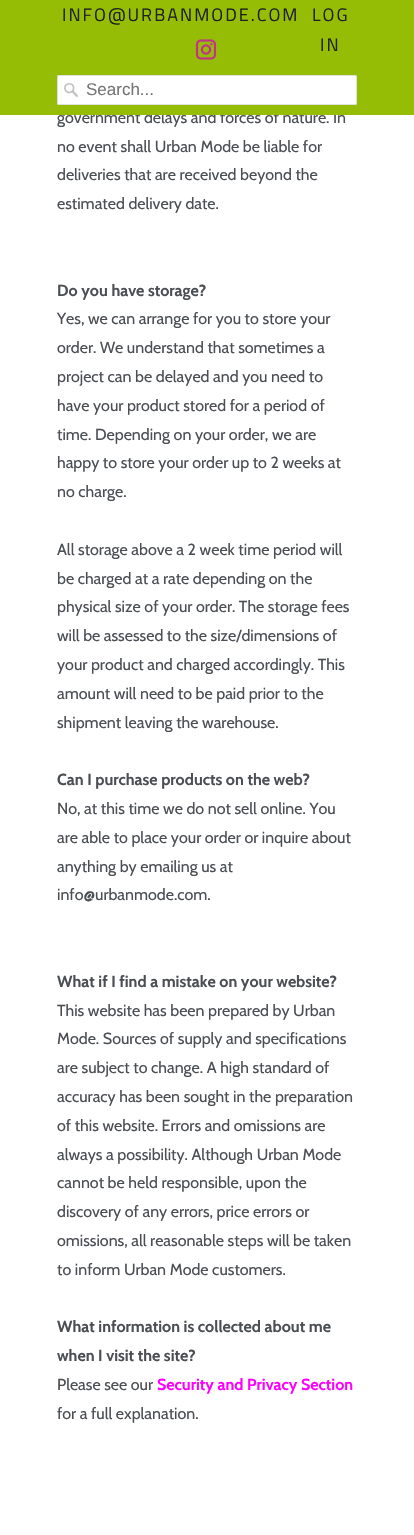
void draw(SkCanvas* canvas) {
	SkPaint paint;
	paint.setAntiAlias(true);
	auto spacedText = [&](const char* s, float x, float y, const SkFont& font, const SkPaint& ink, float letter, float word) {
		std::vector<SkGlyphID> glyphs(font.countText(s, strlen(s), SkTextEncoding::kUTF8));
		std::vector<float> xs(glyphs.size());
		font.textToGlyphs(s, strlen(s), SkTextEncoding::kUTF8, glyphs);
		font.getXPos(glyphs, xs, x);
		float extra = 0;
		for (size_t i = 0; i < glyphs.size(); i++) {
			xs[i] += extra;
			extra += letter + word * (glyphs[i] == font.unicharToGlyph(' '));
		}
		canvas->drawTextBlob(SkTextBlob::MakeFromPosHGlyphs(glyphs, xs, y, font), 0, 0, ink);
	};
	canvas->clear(0xffffffff);
	SkFont f1(fontMgr->matchFamilyStyle("Cabin", SkFontStyle::Normal()), 16);
	f1.setSubpixel(true);
	paint.setColor(0xff4b4f54);
	canvas->drawString("government delays and forces of nature. In", 57, 123, f1, paint);
	paint.setColor(0xff96bd05);
	canvas->drawRect(SkRect::MakeXYWH(0, 0, 414, 115), paint);
	SkFont f2(fontMgr->matchFamilyStyle("Titillium Web", SkFontStyle::Normal()), 18);
	f2.setSubpixel(true);
	paint.setColor(0xff1f2022);
	spacedText("INFO@URBANMODE.COM", 62, 21, f2, paint, 2, 0);
	spacedText("LOG", 312, 21, f2, paint, 2, 0);
	spacedText("IN", 320, 51, f2, paint, 2, 0);
	canvas->drawImageRect(SkImages::DeferredFromEncodedData(SkData::MakeFromFileName("img1.png")), SkRect::MakeXYWH(195, 39, 22, 21), SkSamplingOptions());
	paint.setColor(0xffffffff);
	canvas->drawRoundRect(SkRect::MakeXYWH(57, 75, 300, 30), 2, 2, paint);
	canvas->drawImageRect(SkImages::DeferredFromEncodedData(SkData::MakeFromFileName("img2.png")), SkRect::MakeXYWH(64, 83, 14, 14), SkSamplingOptions());
	paint.setStroke(true);
	paint.setStrokeWidth(1);
	paint.setColor(0xffdfdfdf);
	canvas->drawRoundRect(SkRect::MakeXYWH(57.5, 75.5, 299, 29), 1.5, 1.5, paint);
	SkFont f3(fontMgr->matchFamilyStyle("Liberation Sans", SkFontStyle::Normal()), 17);
	f3.setSubpixel(true);
	paint.setStroke(false);
	paint.setColor(0xff757575);
	canvas->drawString("Search...", 86, 95, f3, paint);
	paint.setColor(0xff4b4f54);
	canvas->drawString("no event shall Urban Mode be liable for", 57, 152, f1, paint);
	canvas->drawString("deliveries that are received beyond the", 57, 180, f1, paint);
	canvas->drawString("estimated delivery date.", 57, 209, f1, paint);
	SkFont f4(fontMgr->matchFamilyStyle("Cabin", SkFontStyle::Bold()), 16);
	f4.setSubpixel(true);
	canvas->drawString("Do you have storage?", 57, 296, f4, paint);
	canvas->drawString("Yes, we can arrange for you to store your", 57, 324, f1, paint);
	canvas->drawString("order. We understand that sometimes a", 57, 353, f1, paint);
	canvas->drawString("project can be delayed and you need to", 57, 382, f1, paint);
	canvas->drawString("have your product stored for a period of", 57, 411, f1, paint);
	canvas->drawString("time. Depending on your order, we are", 57, 440, f1, paint);
	canvas->drawString("happy to store your order up to 2 weeks at", 57, 468, f1, paint);
	canvas->drawString("no charge.", 57, 497, f1, paint);
	canvas->drawString("All storage above a 2 week time period will", 57, 555, f1, paint);
	canvas->drawString("be charged at a rate depending on the", 57, 584, f1, paint);
	canvas->drawString("physical size of your order. The storage fees", 57, 612, f1, paint);
	canvas->drawString("will be assessed to the size/dimensions of", 57, 641, f1, paint);
	canvas->drawString("your product and charged accordingly. This", 57, 670, f1, paint);
	canvas->drawString("amount will need to be paid prior to the", 57, 699, f1, paint);
	canvas->drawString("shipment leaving the warehouse.", 57, 728, f1, paint);
	canvas->drawString("Can I purchase products on the web?", 57, 785, f4, paint);
	canvas->drawString("No, at this time we do not sell online. You", 57, 814, f1, paint);
	canvas->drawString("are able to place your order or inquire about", 57, 843, f1, paint);
	canvas->drawString("anything by emailing us at", 57, 872, f1, paint);
	canvas->drawString("info@urbanmode.com.", 57, 900, f1, paint);
	canvas->drawString("What if I find a mistake on your website?", 57, 987, f4, paint);
	canvas->drawString("This website has been prepared by Urban", 57, 1016, f1, paint);
	canvas->drawString("Mode. Sources of supply and specifications", 57, 1044, f1, paint);
	canvas->drawString("are subject to change. A high standard of", 57, 1073, f1, paint);
	canvas->drawString("accuracy has been sought in the preparation", 57, 1102, f1, paint);
	canvas->drawString("of this website. Errors and omissions are", 57, 1131, f1, paint);
	canvas->drawString("always a possibility. Although Urban Mode", 57, 1160, f1, paint);
	canvas->drawString("cannot be held responsible, upon the", 57, 1188, f1, paint);
	canvas->drawString("discovery of any errors, price errors or", 57, 1217, f1, paint);
	canvas->drawString("omissions, all reasonable steps will be taken", 57, 1246, f1, paint);
	canvas->drawString("to inform Urban Mode customers.", 57, 1275, f1, paint);
	canvas->drawString("What information is collected about me", 57, 1332, f4, paint);
	canvas->drawString("when I visit the site?", 57, 1361, f4, paint);
	canvas->drawString("Please see our", 57, 1390, f1, paint);
	paint.setColor(0xffff00ff);
	canvas->drawString("Security and Privacy Section", 157, 1390, f4, paint);
	paint.setColor(0xff4b4f54);
	canvas->drawString("for a full explanation.", 57, 1419, f1, paint);
}
